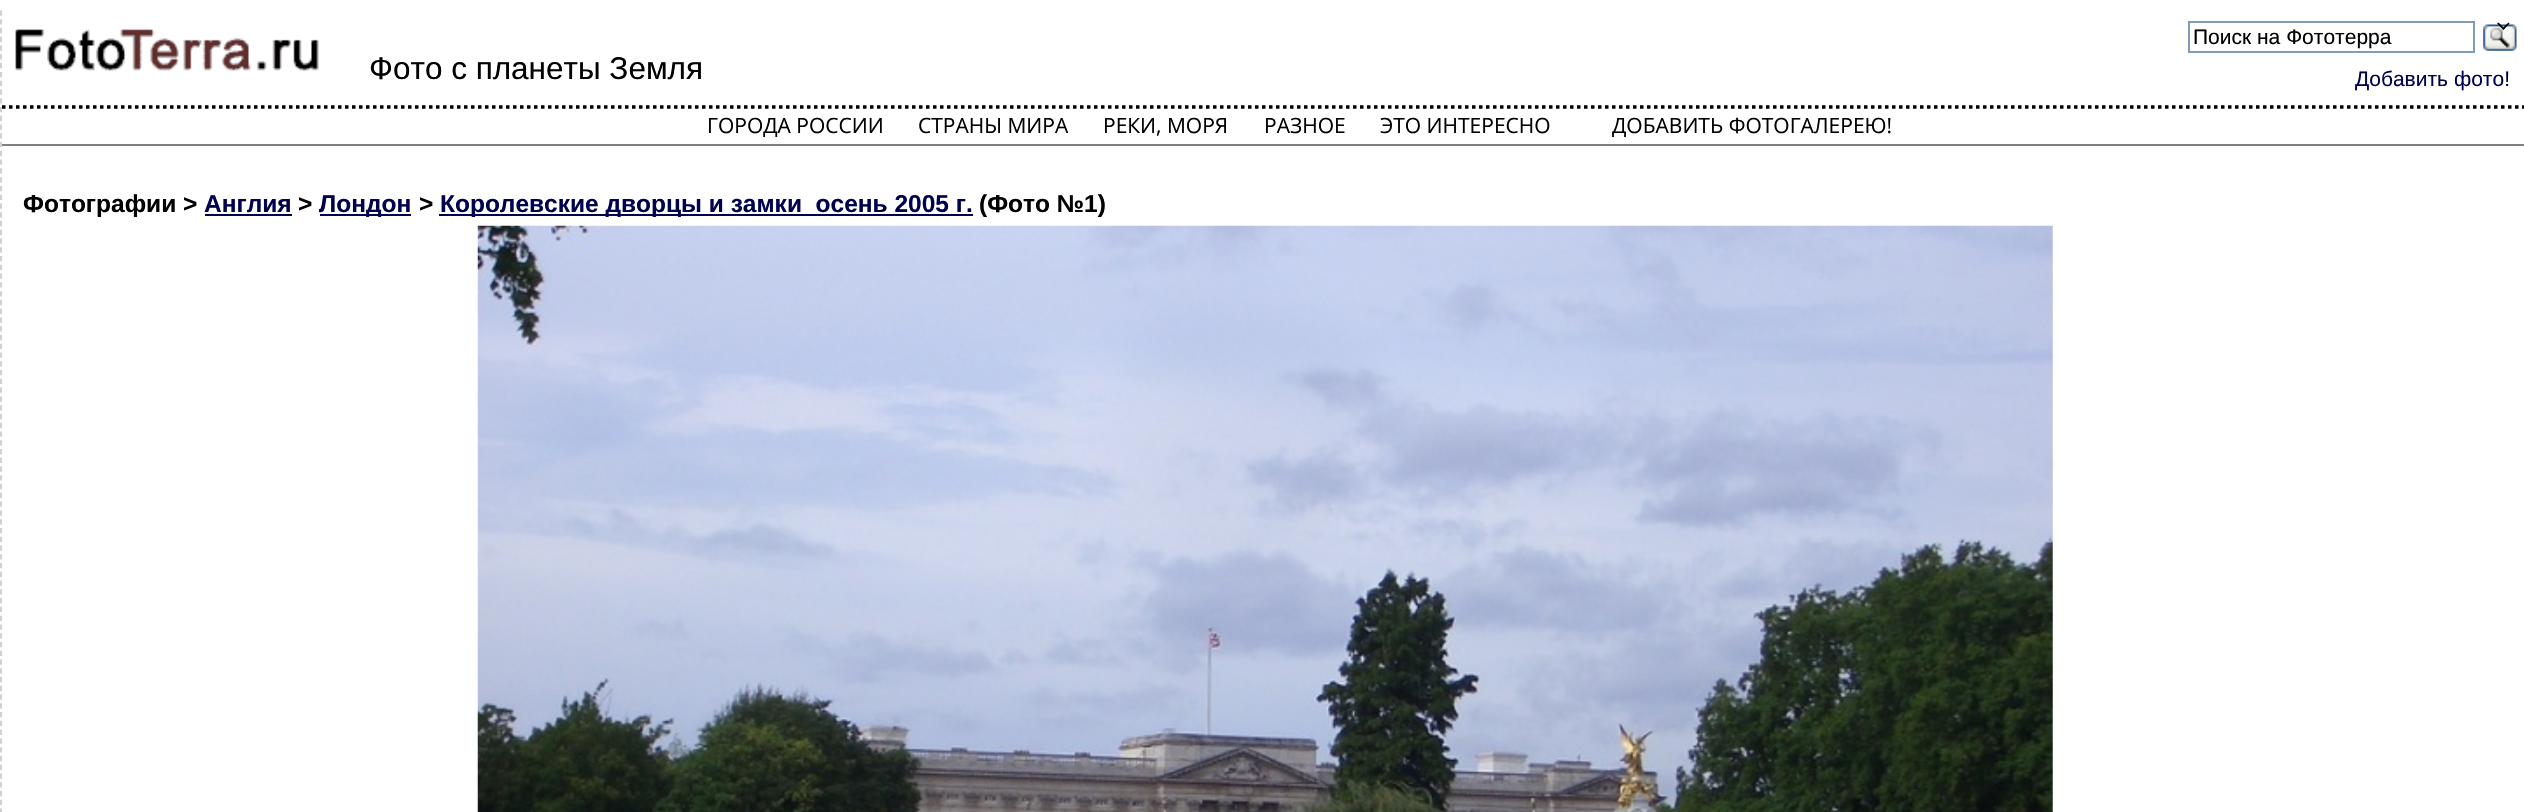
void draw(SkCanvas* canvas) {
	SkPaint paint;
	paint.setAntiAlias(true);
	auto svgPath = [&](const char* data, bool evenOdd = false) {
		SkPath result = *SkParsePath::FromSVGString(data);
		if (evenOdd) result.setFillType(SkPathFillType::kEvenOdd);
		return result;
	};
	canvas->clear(0xffffffff);
	paint.setStroke(true);
	paint.setStrokeWidth(1.8);
	paint.setColor(0xffcccccc);
	paint.setPathEffect(SkDashPathEffect::Make({{5.25f, 3.52f}}, 0));
	canvas->drawPath(svgPath("M1 10.5V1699"), paint);
	paint.setPathEffect(nullptr);
	canvas->drawImageRect(SkImages::DeferredFromEncodedData(SkData::MakeFromFileName("img1.png")), SkRect::MakeXYWH(15, 29, 304, 42), SkSamplingOptions());
	SkFont f1(fontMgr->matchFamilyStyle("Liberation Sans", SkFontStyle::Normal()), 31.5);
	f1.setSubpixel(true);
	paint.setStroke(false);
	paint.setColor(0xff000000);
	canvas->drawString("Фото с планеты Земля", 369, 79, f1, paint);
	paint.setStroke(true);
	paint.setStrokeWidth(2);
	paint.setColor(0xff7f9db9);
	canvas->drawRect(SkRect::MakeXYWH(2189, 22, 285, 30), paint);
	SkFont f2(fontMgr->matchFamilyStyle("Liberation Sans", SkFontStyle::Normal()), 21);
	f2.setSubpixel(true);
	paint.setStroke(false);
	paint.setColor(0xff000000);
	canvas->drawString("Поиск на Фототерра", 2193, 44, f2, paint);
	canvas->drawImageRect(SkImages::DeferredFromEncodedData(SkData::MakeFromFileName("img2.png")), SkRect::MakeXYWH(2483, 24, 34, 27), SkSamplingOptions());
	paint.setColor(0xff000250);
	canvas->drawString("Добавить фото!", 2355, 86, f2, paint);
	paint.setStroke(true);
	paint.setStrokeWidth(3.5);
	paint.setColor(0xff000000);
	paint.setPathEffect(SkDashPathEffect::Make({{3.5f, 3.5f}}, 0));
	canvas->drawPath(svgPath("M2 107H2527"), paint);
	paint.setPathEffect(nullptr);
	paint.setStroke(false);
	paint.setColor(0xff808080);
	canvas->drawRect(SkRect::MakeXYWH(2, 144, 2522, 2), paint);
	SkFont f3(fontMgr->matchFamilyStyle("Open Sans", SkFontStyle::Normal()), 21);
	f3.setSubpixel(true);
	paint.setColor(0xff000000);
	canvas->drawString("ГОРОДА РОССИИ", 707, 133, f3, paint);
	canvas->drawString("СТРАНЫ МИРА", 918, 133, f3, paint);
	canvas->drawString("РЕКИ, МОРЯ", 1103, 133, f3, paint);
	canvas->drawString("РАЗНОЕ", 1264, 133, f3, paint);
	canvas->drawPath(svgPath("M2508.5 22.5L2509.5 23.5L2503.5 30L2502 28.5Z"), paint);
	canvas->drawPath(svgPath("M2498.5 22.5L2504.5 28.5L2503.5 30L2497 23.5Z"), paint);
	canvas->drawString("ЭТО ИНТЕРЕСНО", 1380, 133, f3, paint);
	canvas->drawString("ДОБАВИТЬ ФОТОГАЛЕРЕЮ!", 1612, 133, f3, paint);
	SkFont f4(fontMgr->matchFamilyStyle("Liberation Sans", SkFontStyle::Bold()), 24.5);
	f4.setSubpixel(true);
	canvas->drawString("Фотографии >", 23, 212, f4, paint);
	paint.setColor(0xff000250);
	canvas->drawString("Англия", 204, 212, f4, paint);
	canvas->drawRect(SkRect::MakeXYWH(205, 214, 87, 2), paint);
	paint.setColor(0xff000000);
	canvas->drawString(">", 298, 212, f4, paint);
	paint.setColor(0xff000250);
	canvas->drawRect(SkRect::MakeXYWH(320, 214, 91, 2), paint);
	canvas->drawString("Лондон", 319, 212, f4, paint);
	paint.setColor(0xff000000);
	canvas->drawString(">", 419, 212, f4, paint);
	paint.setColor(0xff000250);
	canvas->drawRect(SkRect::MakeXYWH(439, 214, 534, 2), paint);
	canvas->drawString("Королевские дворцы и замки_осень 2005 г.", 440, 212, f4, paint);
	paint.setColor(0xff000000);
	canvas->drawString("(Фото №1)", 979, 212, f4, paint);
	canvas->drawImageRect(SkImages::DeferredFromEncodedData(SkData::MakeFromFileName("img3.png")), SkRect::MakeXYWH(477, 225, 1576, 587), SkSamplingOptions());
}
